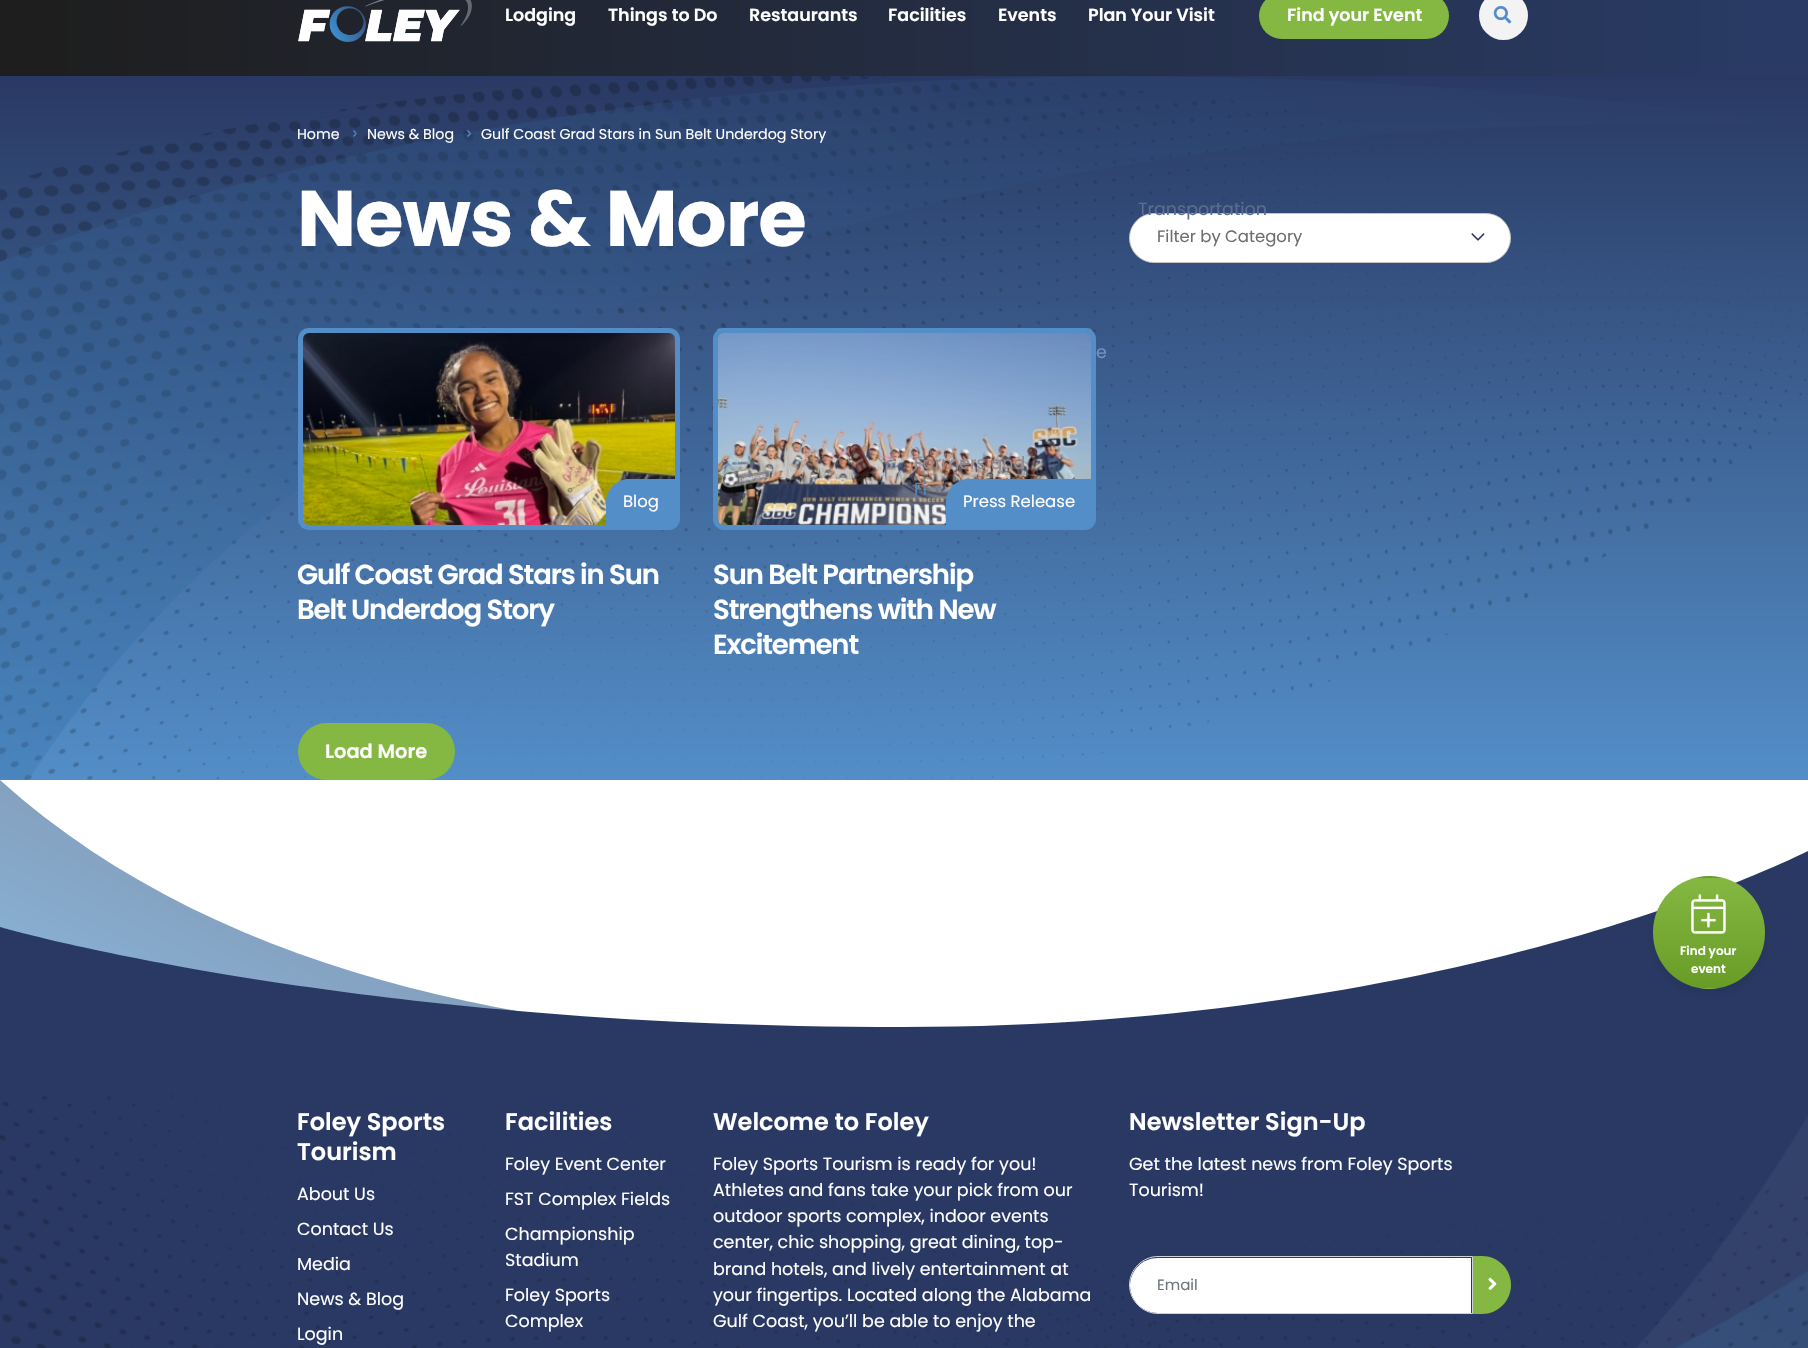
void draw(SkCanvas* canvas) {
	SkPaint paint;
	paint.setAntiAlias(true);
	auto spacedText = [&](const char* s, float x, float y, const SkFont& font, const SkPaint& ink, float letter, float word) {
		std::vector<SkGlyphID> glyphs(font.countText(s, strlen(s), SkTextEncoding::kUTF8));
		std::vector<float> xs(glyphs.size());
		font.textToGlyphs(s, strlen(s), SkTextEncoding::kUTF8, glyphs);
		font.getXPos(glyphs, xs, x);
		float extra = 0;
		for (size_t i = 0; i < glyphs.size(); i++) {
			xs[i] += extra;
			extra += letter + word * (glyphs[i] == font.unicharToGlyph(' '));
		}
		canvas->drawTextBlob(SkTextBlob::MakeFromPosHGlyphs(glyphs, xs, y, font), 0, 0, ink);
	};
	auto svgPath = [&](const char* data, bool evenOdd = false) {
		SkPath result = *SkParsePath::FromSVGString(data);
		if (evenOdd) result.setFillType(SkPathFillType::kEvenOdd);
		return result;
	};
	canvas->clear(0xffffffff);
	{
		const SkColor colors[] = {0xff293b65, 0xff1e1e1e};
		const float stops[] = {0.01, 0.98};
		const SkPoint ends[] = {{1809, 15}, {0, 16}};
		paint.setShader(SkGradientShader::MakeLinear(ends, colors, stops, 2, SkTileMode::kClamp));
		paint.setAlpha(255);
	}
	canvas->drawRect(SkRect::MakeXYWH(0, 0, 1808, 76), paint);
	canvas->drawImageRect(SkImages::DeferredFromEncodedData(SkData::MakeFromFileName("img1.png")), SkRect::MakeXYWH(298, 0, 174, 42), SkSamplingOptions());
	SkFont f1(fontMgr->matchFamilyStyle("Poppins", SkFontStyle(600, SkFontStyle::kNormal_Width, SkFontStyle::kUpright_Slant)), 17.5);
	f1.setSubpixel(true);
	paint.setShader(nullptr);
	paint.setColor(0xffffffff);
	canvas->drawString("Lodging", 505, 21, f1, paint);
	canvas->drawString("Things to Do", 608, 21, f1, paint);
	canvas->drawString("Restaurants", 749, 21, f1, paint);
	canvas->drawString("Facilities", 888, 21, f1, paint);
	{
		const SkColor colors[] = {0xff293963, 0xff538ec8};
		const float stops[] = {0, 1};
		const SkPoint ends[] = {{904, 76}, {904, 780}};
		paint.setShader(SkGradientShader::MakeLinear(ends, colors, stops, 2, SkTileMode::kClamp));
		paint.setAlpha(255);
	}
	canvas->drawRect(SkRect::MakeXYWH(0, 76, 1808, 704), paint);
	canvas->drawImageRect(SkImages::DeferredFromEncodedData(SkData::MakeFromFileName("img3.png")), SkRect::MakeXYWH(0, 76, 1808, 704), SkSamplingOptions());
	{
		const SkColor colors[] = {0x5c3b86c2, 0x5c293963};
		const float stops[] = {0, 1};
		const SkPoint ends[] = {{1264, 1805}, {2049, 83}};
		paint.setShader(SkGradientShader::MakeLinear(ends, colors, stops, 2, SkTileMode::kClamp));
		paint.setAlpha(255);
	}
	canvas->drawPath(svgPath("M-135 1156C-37 793 274 88 1807 124C1273 54 586 32-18 269Z"), paint);
	SkFont f2(fontMgr->matchFamilyStyle("Poppins", SkFontStyle::Normal()), 17.5);
	f2.setSubpixel(true);
	paint.setShader(nullptr);
	paint.setColor(0xff7193c2);
	canvas->drawString("e", 1096, 358, f2, paint);
	canvas->drawImageRect(SkImages::DeferredFromEncodedData(SkData::MakeFromFileName("img6.png")), SkRect::MakeXYWH(717, 328, 375, 201), SkSamplingOptions());
	paint.setStroke(true);
	paint.setStrokeWidth(5);
	paint.setColor(0xff538ec8);
	canvas->drawRoundRect(SkRect::MakeXYWH(715.5, 330.5, 378, 197), 8.5, 8.5, paint);
	paint.setStroke(false);
	paint.setColor(0xff988988);
	canvas->drawString("Farmers and", 914, 469, f2, paint);
	paint.setColor(0xff5a86b5);
	canvas->drawString("Fi", 914, 495, f2, paint);
	paint.setColor(0xffffffff);
	canvas->drawString("Plan Your Visit", 1088, 21, f1, paint);
	canvas->drawRoundRect(SkRect::MakeXYWH(1129.5, 213.5, 381, 49), 24.5, 24.5, paint);
	paint.setStroke(true);
	paint.setStrokeWidth(1);
	paint.setColor(0xffc5c5c5);
	canvas->drawRoundRect(SkRect::MakeXYWH(1129.5, 213.5, 381, 49), 24.5, 24.5, paint);
	paint.setStroke(false);
	paint.setColor(0xff5b6d90);
	canvas->drawString("Transportation", 1138, 215, f2, paint);
	paint.setColor(0xff84b843);
	canvas->drawRoundRect(SkRect::MakeXYWH(1259, -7, 190, 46), 23, 23, paint);
	paint.setColor(0xffffffff);
	canvas->drawString("Find your Event", 1287, 21, f1, paint);
	paint.setColor(0xfff3f3f3);
	canvas->drawCircle(1503.5, 15.5, 24.5, paint);
	canvas->drawImageRect(SkImages::DeferredFromEncodedData(SkData::MakeFromFileName("img2.png")), SkRect::MakeXYWH(1493, 6, 19, 18), SkSamplingOptions());
	paint.setColor(0xffffffff);
	canvas->drawString("Events", 998, 21, f1, paint);
	SkFont f3(fontMgr->matchFamilyStyle("Poppins", SkFontStyle::Normal()), 14.25);
	f3.setSubpixel(true);
	canvas->drawString("Home", 297, 139, f3, paint);
	paint.setColor(0xff538ec8);
	canvas->drawPath(svgPath("M353.5 129.5L357 133.5H355.5L353.5 131.5Z"), paint);
	canvas->drawPath(svgPath("M357 133.5L353.5 137.5V135.5L355.5 133.5Z"), paint);
	paint.setColor(0xffffffff);
	canvas->drawString("News & Blog", 367, 139, f3, paint);
	paint.setColor(0xff538ec8);
	canvas->drawPath(svgPath("M467.5 129.5L471.5 133.5H469.5L467.5 131.5Z"), paint);
	canvas->drawPath(svgPath("M471.5 133.5L467.5 137.5V135.5L469.5 133.5Z"), paint);
	paint.setColor(0xffffffff);
	canvas->drawString("Gulf Coast Grad Stars in Sun Belt Underdog Story", 481, 139, f3, paint);
	SkFont f4(fontMgr->matchFamilyStyle("Poppins", SkFontStyle::Bold()), 78.75);
	f4.setSubpixel(true);
	spacedText("News & More", 297, 246, f4, paint, -1.1, 0);
	SkFont f5(fontMgr->matchFamilyStyle("Poppins", SkFontStyle::Normal()), 16.5);
	f5.setSubpixel(true);
	paint.setColor(0xff6d6d6d);
	canvas->drawString("Filter by Category", 1157, 242, f5, paint);
	canvas->drawImageRect(SkImages::DeferredFromEncodedData(SkData::MakeFromFileName("img4.png")), SkRect::MakeXYWH(1471, 233, 14, 8), SkSamplingOptions());
	canvas->drawImageRect(SkImages::DeferredFromEncodedData(SkData::MakeFromFileName("img5.png")), SkRect::MakeXYWH(302, 329, 373, 200), SkSamplingOptions());
	paint.setStroke(true);
	paint.setStrokeWidth(5);
	paint.setColor(0xff538ec8);
	canvas->drawRoundRect(SkRect::MakeXYWH(300.5, 330.5, 377, 197), 8.5, 8.5, paint);
	paint.setStroke(false);
	canvas->drawPath(svgPath("M629 479H675V525H606V502C606 489.5 616.5 479 629 479Z"), paint);
	paint.setColor(0xffffffff);
	canvas->drawString("Blog", 623, 507, f5, paint);
	SkFont f6(fontMgr->matchFamilyStyle("Poppins", SkFontStyle(600, SkFontStyle::kNormal_Width, SkFontStyle::kUpright_Slant)), 27.5);
	f6.setSubpixel(true);
	spacedText("Gulf Coast Grad Stars in Sun", 297, 584, f6, paint, -1.1, 0);
	spacedText("Belt Underdog Story", 297, 619, f6, paint, -1.1, 0);
	paint.setColor(0xff538ec8);
	canvas->drawPath(svgPath("M969 479H1091V525H946V502C946 489.5 956.5 479 969 479Z"), paint);
	paint.setColor(0xffffffff);
	canvas->drawString("Press Release", 963, 507, f5, paint);
	spacedText("Sun Belt Partnership", 713, 584, f6, paint, -1.1, 0);
	spacedText("Strengthens with New", 713, 619, f6, paint, -1.1, 0);
	spacedText("Excitement", 713, 654, f6, paint, -1.1, 0);
	paint.setColor(0xff84b843);
	canvas->drawRoundRect(SkRect::MakeXYWH(298, 723, 157, 57), 28.5, 28.5, paint);
	SkFont f7(fontMgr->matchFamilyStyle("Poppins", SkFontStyle(600, SkFontStyle::kNormal_Width, SkFontStyle::kUpright_Slant)), 19.5);
	f7.setSubpixel(true);
	paint.setColor(0xffffffff);
	canvas->drawString("Load More", 325, 758, f7, paint);
	canvas->drawRect(SkRect::MakeXYWH(0, 780, 29, 47), paint);
	{
		const SkColor colors[] = {0xff89b6da, 0xff7f88a1};
		const float stops[] = {0, 1};
		const SkPoint ends[] = {{368, 1194}, {566, 785}};
		paint.setShader(SkGradientShader::MakeLinear(ends, colors, stops, 2, SkTileMode::kClamp));
		paint.setAlpha(255);
	}
	canvas->drawPath(svgPath("M1012 1037C717 1083 346 1106 0 1014V780C263 1017 673 1053 1012 1037Z"), paint);
	canvas->save();
	canvas->clipRect(SkRect::MakeXYWH(0, 780, 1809, 313));
	paint.setShader(nullptr);
	paint.setColor(0xff293963);
	canvas->drawPath(svgPath("M1808 851V1094H0V927C0 927 189 982 518 1011C631 1021 760 1027 904 1027C1467 1027 1808 851 1808 851Z"), paint);
	canvas->restore();
	paint.setColor(0x0f000000);
	paint.setMaskFilter(SkMaskFilter::MakeBlur(kNormal_SkBlurStyle, 4));
	canvas->drawRoundRect(SkRect::MakeXYWH(1653, 884, 112, 112), 56, 56, paint);
	paint.setMaskFilter(nullptr);
	canvas->save();
	canvas->clipPath(svgPath("M1709 876C1740 876 1765 901 1765 932V933C1765 964 1740 989 1709 989C1678 989 1653 964 1653 933V932C1653 901 1678 876 1709 876Z"), true);
	{
		const SkColor colors[] = {0xff84b843, 0xff689c27};
		const float stops[] = {0, 1};
		const SkPoint ends[] = {{1709, 768}, {1709, 878}};
		paint.setShader(SkGradientShader::MakeLinear(ends, colors, stops, 2, SkTileMode::kClamp));
		paint.setAlpha(255);
	}
	canvas->drawRect(SkRect::MakeXYWH(1694, 876, 30, 2), paint);
	{
		const SkColor colors[] = {0xff84b843, 0xff689c27};
		const float stops[] = {0, 1};
		const SkPoint ends[] = {{1709, 878}, {1709, 988}};
		paint.setShader(SkGradientShader::MakeLinear(ends, colors, stops, 2, SkTileMode::kClamp));
		paint.setAlpha(255);
	}
	canvas->drawRect(SkRect::MakeXYWH(1653, 878, 112, 110), paint);
	{
		const SkColor colors[] = {0xff84b843, 0xff689c27};
		const float stops[] = {0, 1};
		const SkPoint ends[] = {{1709, 988}, {1709, 1098}};
		paint.setShader(SkGradientShader::MakeLinear(ends, colors, stops, 2, SkTileMode::kClamp));
		paint.setAlpha(255);
	}
	canvas->drawRect(SkRect::MakeXYWH(1699, 988, 20, 1), paint);
	canvas->restore();
	canvas->drawImageRect(SkImages::DeferredFromEncodedData(SkData::MakeFromFileName("img7.png")), SkRect::MakeXYWH(1691, 894, 35, 40), SkSamplingOptions());
	SkFont f8(fontMgr->matchFamilyStyle("Poppins", SkFontStyle(600, SkFontStyle::kNormal_Width, SkFontStyle::kUpright_Slant)), 12);
	f8.setSubpixel(true);
	paint.setShader(nullptr);
	paint.setColor(0xffffffff);
	canvas->drawString("Find your", 1680, 955, f8, paint);
	canvas->drawString("event", 1691, 973, f8, paint);
	canvas->drawImageRect(SkImages::DeferredFromEncodedData(SkData::MakeFromFileName("img8.png")), SkRect::MakeXYWH(0, 1093, 1808, 255), SkSamplingOptions());
	SkFont f9(fontMgr->matchFamilyStyle("Poppins", SkFontStyle(600, SkFontStyle::kNormal_Width, SkFontStyle::kUpright_Slant)), 24);
	f9.setSubpixel(true);
	canvas->drawString("Foley Sports", 297, 1130, f9, paint);
	canvas->drawString("Tourism", 297, 1160, f9, paint);
	canvas->drawString("About Us", 297, 1200, f2, paint);
	canvas->drawString("Contact Us", 297, 1235, f2, paint);
	canvas->drawString("Media", 297, 1270, f2, paint);
	canvas->drawString("News & Blog", 297, 1305, f2, paint);
	canvas->drawString("Login", 297, 1340, f2, paint);
	canvas->drawString("Facilities", 505, 1130, f9, paint);
	canvas->drawString("Foley Event Center", 505, 1170, f2, paint);
	canvas->drawString("FST Complex Fields", 505, 1205, f2, paint);
	canvas->drawString("Championship", 505, 1240, f2, paint);
	canvas->drawString("Stadium", 505, 1266, f2, paint);
	canvas->drawString("Foley Sports", 505, 1301, f2, paint);
	canvas->drawString("Complex", 505, 1327, f2, paint);
	canvas->drawString("Welcome to Foley", 713, 1130, f9, paint);
	canvas->drawString("Foley Sports Tourism is ready for you!", 713, 1170, f2, paint);
	canvas->drawString("Athletes and fans take your pick from our", 713, 1196, f2, paint);
	canvas->drawString("outdoor sports complex, indoor events", 713, 1222, f2, paint);
	canvas->drawString("center, chic shopping, great dining, top-", 713, 1248, f2, paint);
	canvas->drawString("brand hotels, and lively entertainment at", 713, 1275, f2, paint);
	canvas->drawString("your fingertips. Located along the Alabama", 713, 1301, f2, paint);
	canvas->drawString("Gulf Coast, you’ll be able to enjoy the", 713, 1327, f2, paint);
	canvas->drawString("Newsletter Sign-Up", 1129, 1130, f9, paint);
	canvas->drawString("Get the latest news from Foley Sports", 1129, 1170, f2, paint);
	canvas->drawString("Tourism!", 1129, 1196, f2, paint);
	canvas->drawPath(svgPath("M1157.5 1258H1471V1313H1157.5C1142.5 1313 1130 1300.5 1130 1285.5C1130 1270.5 1142.5 1258 1157.5 1258Z"), paint);
	paint.setStroke(true);
	paint.setStrokeWidth(1);
	paint.setColor(0xffced4da);
	canvas->drawPath(svgPath("M1158 1256.5H1472.5V1313.5H1158C1142.5 1313.5 1129.5 1300.5 1129.5 1285C1129.5 1269.5 1142.5 1256.5 1158 1256.5Z"), paint);
	SkFont f10(fontMgr->matchFamilyStyle("Poppins", SkFontStyle::Normal()), 15);
	f10.setSubpixel(true);
	paint.setStroke(false);
	paint.setColor(0xff6c757d);
	canvas->drawString("Email", 1157, 1290, f10, paint);
	paint.setColor(0xff84b843);
	canvas->drawPath(svgPath("M1473 1256H1482C1498 1256 1511 1269 1511 1285C1511 1301 1498 1314 1482 1314H1473Z"), paint);
	canvas->drawImageRect(SkImages::DeferredFromEncodedData(SkData::MakeFromFileName("img9.png")), SkRect::MakeXYWH(1488, 1277, 9, 13), SkSamplingOptions());
}
